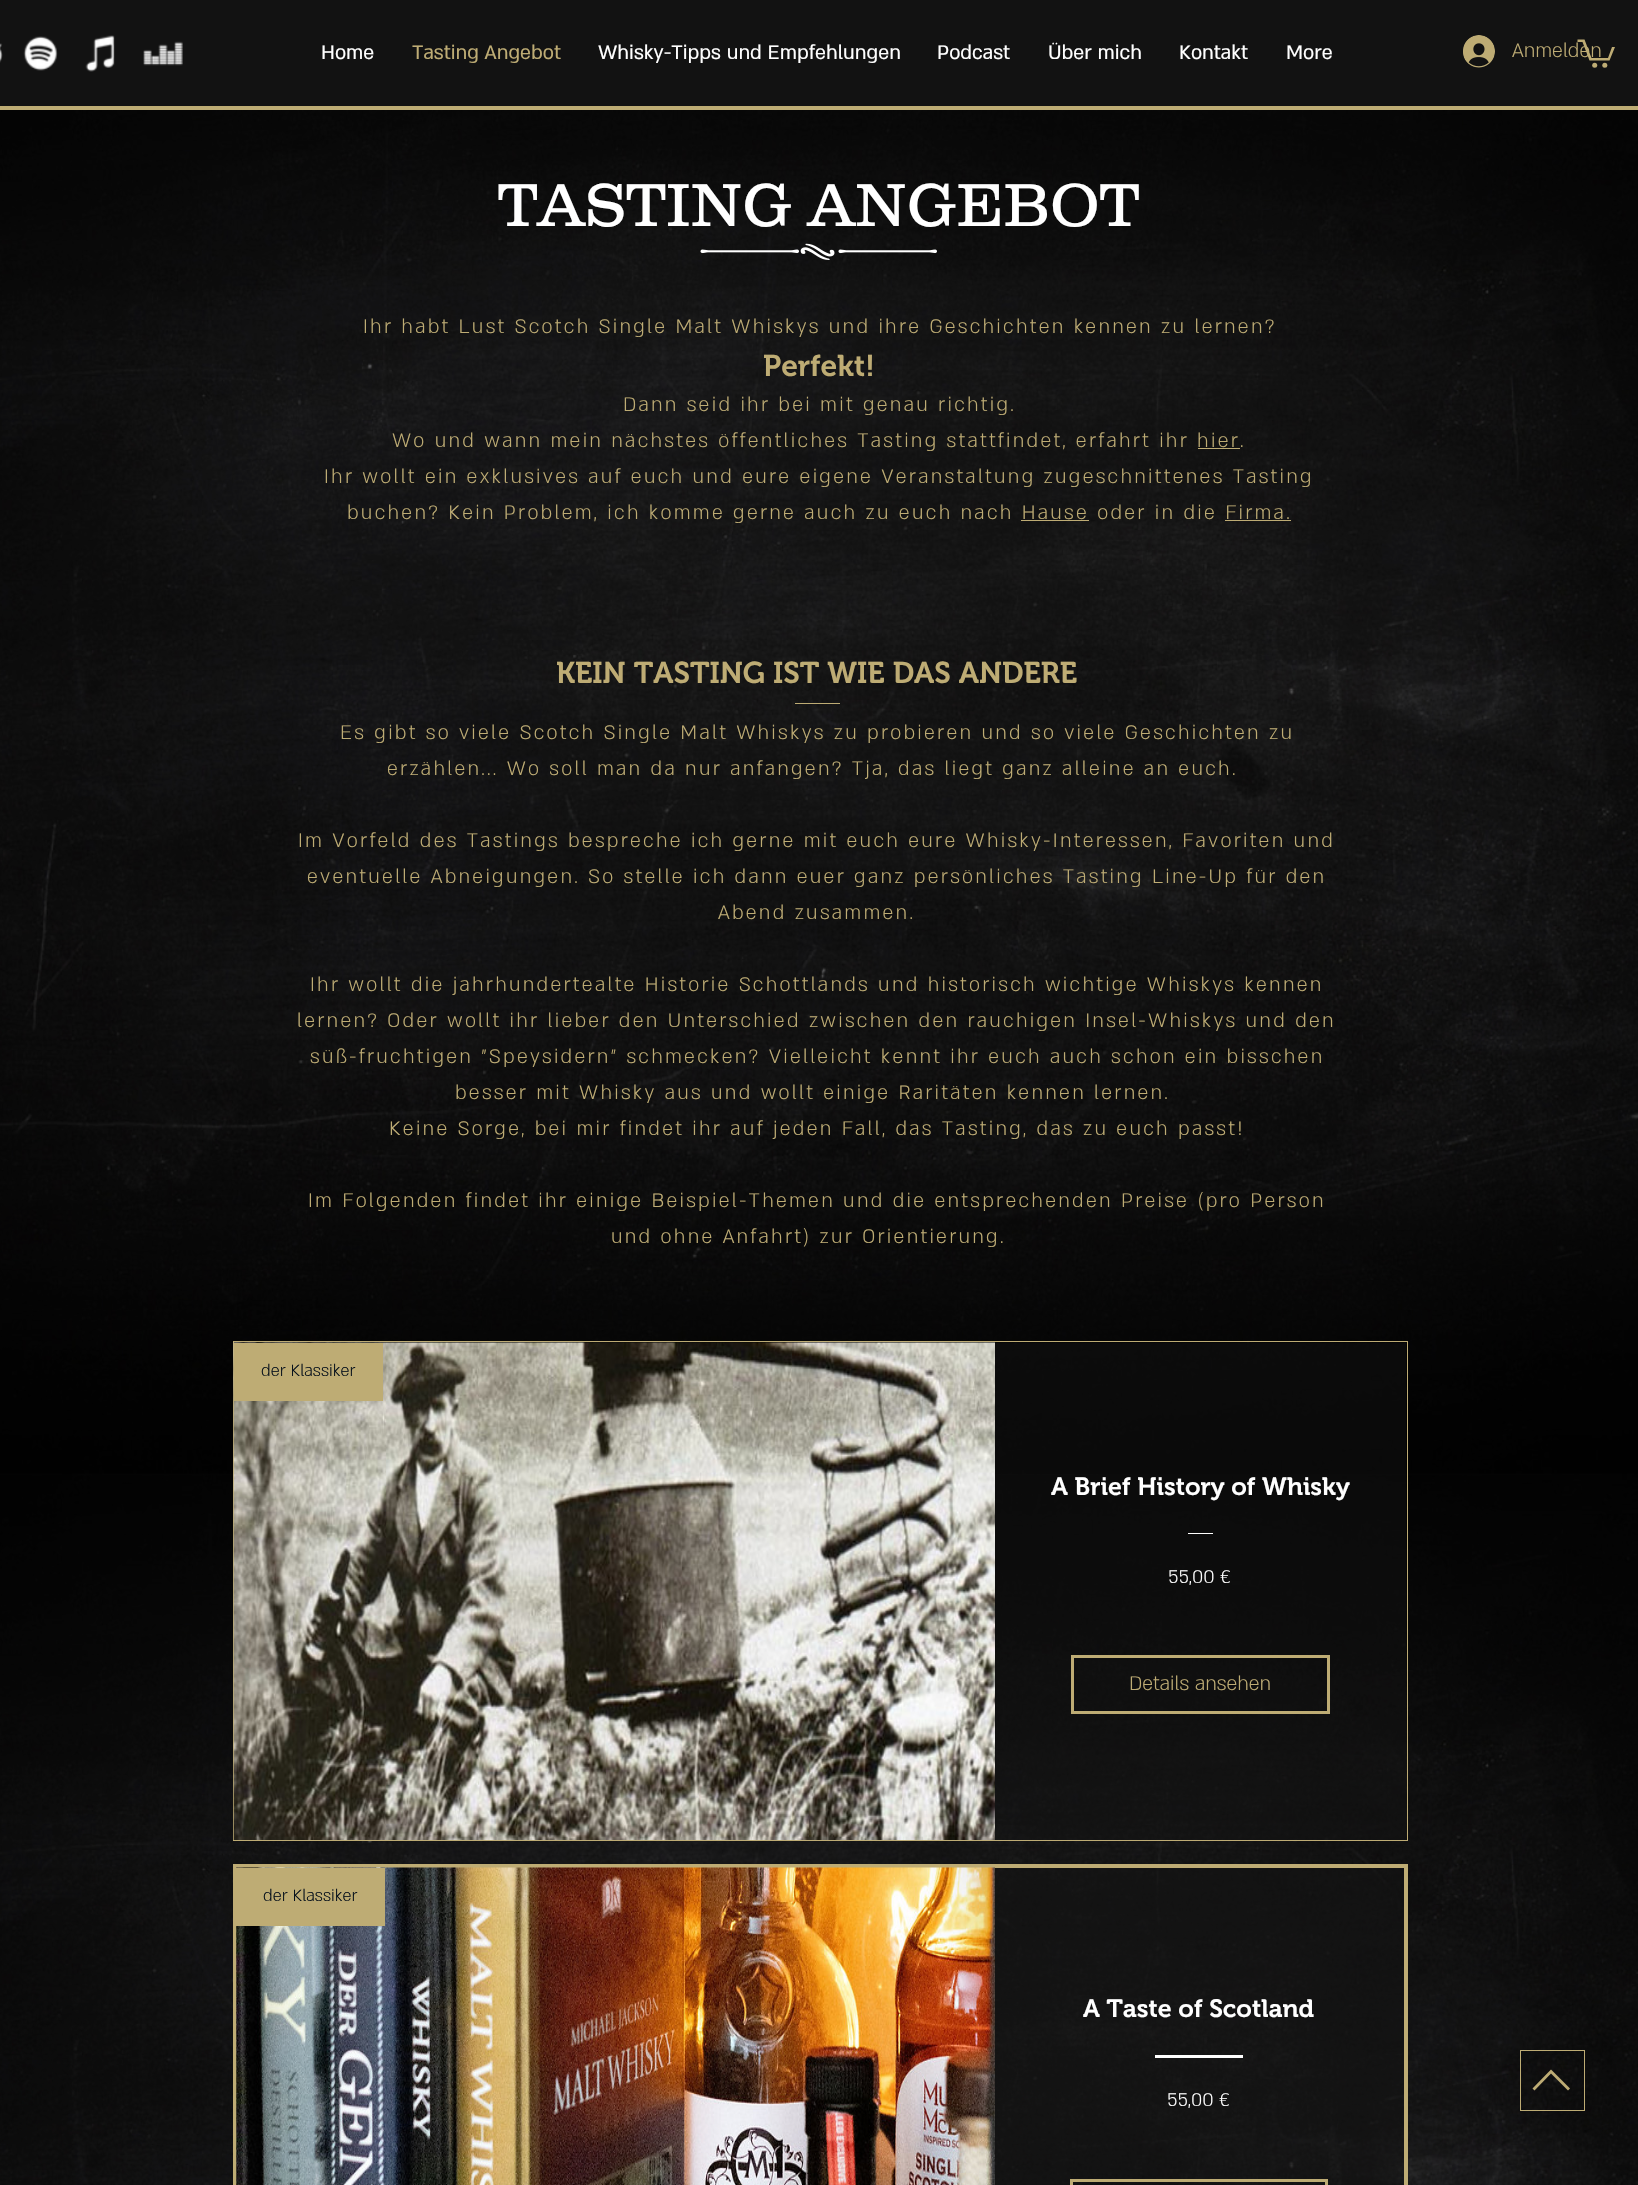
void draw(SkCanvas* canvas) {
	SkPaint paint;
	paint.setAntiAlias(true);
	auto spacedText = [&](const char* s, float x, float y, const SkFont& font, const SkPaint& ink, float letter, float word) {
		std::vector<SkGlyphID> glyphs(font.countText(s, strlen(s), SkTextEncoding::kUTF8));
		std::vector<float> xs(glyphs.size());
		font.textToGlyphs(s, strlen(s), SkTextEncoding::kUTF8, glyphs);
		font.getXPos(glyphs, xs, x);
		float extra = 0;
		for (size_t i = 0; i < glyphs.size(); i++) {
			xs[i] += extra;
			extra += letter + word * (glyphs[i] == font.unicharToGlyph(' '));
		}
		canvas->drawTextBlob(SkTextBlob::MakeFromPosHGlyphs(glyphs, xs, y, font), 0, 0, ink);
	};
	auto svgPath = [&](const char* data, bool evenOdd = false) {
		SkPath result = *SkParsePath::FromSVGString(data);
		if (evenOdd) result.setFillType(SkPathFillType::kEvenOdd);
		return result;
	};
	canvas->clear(0xffffffff);
	paint.setColor(0xff121212);
	canvas->drawRect(SkRect::MakeXYWH(0, 0, 1638, 106), paint);
	paint.setColor(0xffbeac74);
	canvas->drawRect(SkRect::MakeXYWH(0, 106, 1638, 4), paint);
	canvas->drawImageRect(SkImages::DeferredFromEncodedData(SkData::MakeFromFileName("img1.png")), SkRect::MakeXYWH(0, 43, 3, 20), SkSamplingOptions());
	canvas->drawImageRect(SkImages::DeferredFromEncodedData(SkData::MakeFromFileName("img2.png")), SkRect::MakeXYWH(23, 36, 35, 35), SkSamplingOptions());
	canvas->drawImageRect(SkImages::DeferredFromEncodedData(SkData::MakeFromFileName("img3.png")), SkRect::MakeXYWH(85, 35, 30, 37), SkSamplingOptions());
	canvas->drawImageRect(SkImages::DeferredFromEncodedData(SkData::MakeFromFileName("img4.png")), SkRect::MakeXYWH(143, 41, 40, 25), SkSamplingOptions());
	SkFont f1(fontMgr->matchFamilyStyle("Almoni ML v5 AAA", SkFontStyle::Normal()), 22.5);
	f1.setSubpixel(true);
	paint.setColor(0xffffffff);
	canvas->drawString("Home", 321, 59, f1, paint);
	paint.setColor(0xffbeac74);
	canvas->drawString("Tasting Angebot", 412, 59, f1, paint);
	paint.setColor(0xffffffff);
	canvas->drawString("Whisky-Tipps und Empfehlungen", 598, 59, f1, paint);
	canvas->drawString("Podcast", 937, 59, f1, paint);
	canvas->drawString("Über mich", 1048, 59, f1, paint);
	canvas->drawString("Kontakt", 1179, 59, f1, paint);
	canvas->drawString("More", 1286, 59, f1, paint);
	paint.setColor(0xffbeac74);
	canvas->drawPath(svgPath("M1615 47L1609.5 60.5H1589.5L1582.5 42H1577.5V39.5H1584.5L1591.5 58H1608L1612 47"), paint);
	canvas->drawCircle(1604.8, 65.3, 2.5, paint);
	canvas->drawCircle(1594.7, 65.3, 2.5, paint);
	canvas->drawImageRect(SkImages::DeferredFromEncodedData(SkData::MakeFromFileName("img5.png")), SkRect::MakeXYWH(1463, 35, 32, 33), SkSamplingOptions());
	SkFont f2(fontMgr->matchFamilyStyle("Almoni ML v5 AAA", SkFontStyle(300, SkFontStyle::kNormal_Width, SkFontStyle::kUpright_Slant)), 22.5);
	f2.setSubpixel(true);
	canvas->drawString("Anmelden", 1512, 57, f2, paint);
	canvas->drawImageRect(SkImages::DeferredFromEncodedData(SkData::MakeFromFileName("img9.png")), SkRect::MakeXYWH(0, 110, 1638, 2075), SkSamplingOptions());
	SkFont f3(fontMgr->matchFamilyStyle("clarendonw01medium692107", SkFontStyle(300, SkFontStyle::kNormal_Width, SkFontStyle::kUpright_Slant)), 62.5);
	f3.setSubpixel(true);
	paint.setColor(0xffffffff);
	canvas->drawString("TASTING ANGEBOT", 498, 226, f3, paint);
	canvas->drawImageRect(SkImages::DeferredFromEncodedData(SkData::MakeFromFileName("img6.png")), SkRect::MakeXYWH(700, 243, 237, 17), SkSamplingOptions());
	paint.setColor(0xffbeac74);
	spacedText("Ihr habt Lust Scotch Single Malt Whiskys und ihre Geschichten kennen zu lernen?", 363, 333, f2, paint, 2.25, 0);
	SkFont f4(fontMgr->matchFamilyStyle("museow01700", SkFontStyle(600, SkFontStyle::kNormal_Width, SkFontStyle::kUpright_Slant)), 30);
	f4.setSubpixel(true);
	canvas->drawString("Perfekt!", 763, 376, f4, paint);
	spacedText("Dann seid ihr bei mit genau richtig.", 623, 411, f2, paint, 2.25, 0);
	spacedText("Wo und wann mein nächstes öffentliches Tasting stattfindet, erfahrt ihr hier.", 392, 447, f2, paint, 2.25, 0);
	canvas->drawRect(SkRect::MakeXYWH(1198, 448, 42, 1), paint);
	spacedText("Ihr wollt ein exklusives auf euch und eure eigene Veranstaltung zugeschnittenes Tasting", 324, 483, f2, paint, 2.25, 0);
	spacedText("buchen? Kein Problem, ich komme gerne auch zu euch nach Hause oder in die Firma.", 347, 519, f2, paint, 2.25, 0);
	canvas->drawRect(SkRect::MakeXYWH(1021, 520, 68, 1), paint);
	canvas->drawRect(SkRect::MakeXYWH(1225, 520, 66, 1), paint);
	canvas->drawString("KEIN TASTING IST WIE DAS ANDERE", 556, 683, f4, paint);
	canvas->drawRect(SkRect::MakeXYWH(795, 703, 45, 1), paint);
	spacedText("Es gibt so viele Scotch Single Malt Whiskys zu probieren und so viele Geschichten zu", 340, 739, f2, paint, 2.25, 0);
	spacedText("erzählen... Wo soll man da nur anfangen? Tja, das liegt ganz alleine an euch.", 387, 775, f2, paint, 2.25, 0);
	spacedText("Im Vorfeld des Tastings bespreche ich gerne mit euch eure Whisky-Interessen, Favoriten und", 298, 847, f2, paint, 2.25, 0);
	spacedText("eventuelle Abneigungen. So stelle ich dann euer ganz persönliches Tasting Line-Up für den", 307, 883, f2, paint, 2.25, 0);
	spacedText("Abend zusammen.", 718, 919, f2, paint, 2.25, 0);
	spacedText("Ihr wollt die jahrhundertealte Historie Schottlands und historisch wichtige Whiskys kennen", 310, 991, f2, paint, 2.25, 0);
	spacedText("lernen? Oder wollt ihr lieber den Unterschied zwischen den rauchigen Insel-Whiskys und den", 297, 1027, f2, paint, 2.25, 0);
	spacedText("süß-fruchtigen \"Speysidern\" schmecken? Vielleicht kennt ihr euch auch schon ein bisschen", 310, 1063, f2, paint, 2.25, 0);
	spacedText("besser mit Whisky aus und wollt einige Raritäten kennen lernen.", 455, 1099, f2, paint, 2.25, 0);
	spacedText("Keine Sorge, bei mir findet ihr auf jeden Fall, das Tasting, das zu euch passt!", 389, 1135, f2, paint, 2.25, 0);
	spacedText("Im Folgenden findet ihr einige Beispiel-Themen und die entsprechenden Preise (pro Person", 308, 1207, f2, paint, 2.25, 0);
	spacedText("und ohne Anfahrt) zur Orientierung.", 611, 1243, f2, paint, 2.25, 0);
	paint.setStroke(true);
	paint.setStrokeWidth(1);
	canvas->drawRect(SkRect::MakeXYWH(233.5, 1341.5, 1174, 499), paint);
	canvas->drawImageRect(SkImages::DeferredFromEncodedData(SkData::MakeFromFileName("img7.png")), SkRect::MakeXYWH(233, 1342, 762, 498), SkSamplingOptions());
	paint.setStroke(false);
	canvas->drawRect(SkRect::MakeXYWH(234, 1343, 149, 58), paint);
	SkFont f5(fontMgr->matchFamilyStyle("Almoni ML v5 AAA", SkFontStyle(300, SkFontStyle::kNormal_Width, SkFontStyle::kUpright_Slant)), 18.75);
	f5.setSubpixel(true);
	paint.setColor(0xff06101b);
	canvas->drawString("der Klassiker", 261, 1376, f5, paint);
	paint.setColor(0x73121212);
	canvas->drawRect(SkRect::MakeXYWH(995, 1343, 411, 497), paint);
	SkFont f6(fontMgr->matchFamilyStyle("museow01700", SkFontStyle(600, SkFontStyle::kNormal_Width, SkFontStyle::kUpright_Slant)), 25);
	f6.setSubpixel(true);
	paint.setColor(0xffffffff);
	canvas->drawString("A Brief History of Whisky", 1051, 1495, f6, paint);
	canvas->drawRect(SkRect::MakeXYWH(1188, 1533, 25, 1), paint);
	SkFont f7(fontMgr->matchFamilyStyle("Almoni ML v5 AAA", SkFontStyle(300, SkFontStyle::kNormal_Width, SkFontStyle::kUpright_Slant)), 21);
	f7.setSubpixel(true);
	canvas->drawString("55,00 €", 1168, 1583, f7, paint);
	paint.setStroke(true);
	paint.setStrokeWidth(3);
	paint.setColor(0xffbeac74);
	canvas->drawRect(SkRect::MakeXYWH(1072.5, 1656.5, 256, 56), paint);
	paint.setStroke(false);
	canvas->drawString("Details ansehen", 1129, 1690, f2, paint);
	paint.setStroke(true);
	paint.setStrokeWidth(4);
	canvas->drawRect(SkRect::MakeXYWH(235, 1866, 1171, 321), paint);
	canvas->drawImageRect(SkImages::DeferredFromEncodedData(SkData::MakeFromFileName("img8.png")), SkRect::MakeXYWH(236, 1867, 759, 318), SkSamplingOptions());
	paint.setStroke(false);
	canvas->drawRect(SkRect::MakeXYWH(236, 1868, 149, 58), paint);
	paint.setColor(0xff06101b);
	canvas->drawString("der Klassiker", 263, 1901, f5, paint);
	paint.setColor(0x8c121212);
	canvas->drawRect(SkRect::MakeXYWH(995, 1868, 409, 317), paint);
	paint.setColor(0xffffffff);
	canvas->drawString("A Taste of Scotland", 1083, 2017, f6, paint);
	canvas->drawRect(SkRect::MakeXYWH(1155, 2055, 88, 3), paint);
	canvas->drawString("55,00 €", 1167, 2106, f7, paint);
	paint.setStroke(true);
	paint.setStrokeWidth(3);
	paint.setColor(0xffbeac74);
	canvas->drawRect(SkRect::MakeXYWH(1071.5, 2180.5, 255, 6), paint);
	paint.setStrokeWidth(1);
	canvas->drawRect(SkRect::MakeXYWH(1520.5, 2050.5, 64, 60), paint);
	paint.setStroke(false);
	canvas->drawPath(svgPath("M1532.5 2088.5L1534.5 2090.5L1551 2073.5L1568 2090.5L1570 2088.5L1551 2069.5Z"), paint);
}
